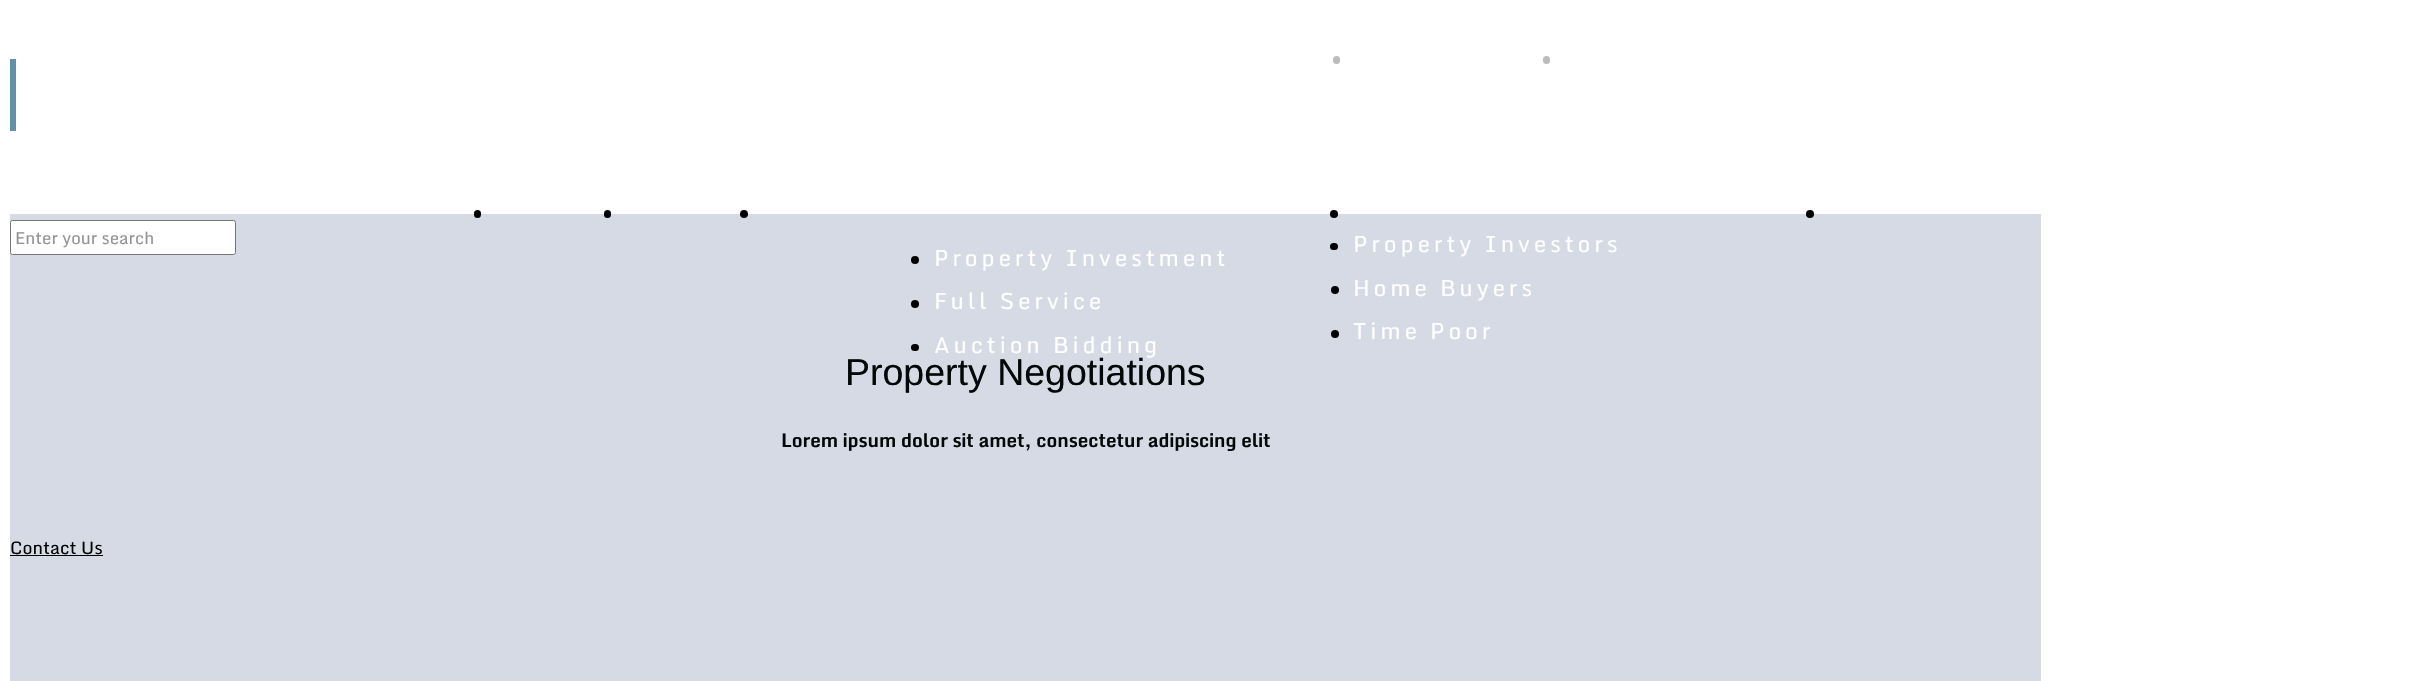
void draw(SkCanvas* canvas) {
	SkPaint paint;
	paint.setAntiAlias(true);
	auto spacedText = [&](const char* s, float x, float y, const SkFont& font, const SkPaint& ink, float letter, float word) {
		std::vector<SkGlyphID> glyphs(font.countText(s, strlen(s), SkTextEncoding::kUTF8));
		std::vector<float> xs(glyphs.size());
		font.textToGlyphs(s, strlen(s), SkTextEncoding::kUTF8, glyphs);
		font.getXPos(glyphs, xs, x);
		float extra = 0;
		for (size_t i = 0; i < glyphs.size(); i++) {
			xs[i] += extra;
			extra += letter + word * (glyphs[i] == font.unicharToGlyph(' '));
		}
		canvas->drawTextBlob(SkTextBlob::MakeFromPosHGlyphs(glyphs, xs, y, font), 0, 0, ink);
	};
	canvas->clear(0xffffffff);
	paint.setColor(0xff6690a5);
	canvas->drawRect(SkRect::MakeXYWH(10, 59, 6, 72), paint);
	paint.setColor(0xffbbbbbb);
	canvas->drawRoundRect(SkRect::MakeXYWH(1333, 56, 7, 8), 3.5, 3.5, paint);
	canvas->drawRoundRect(SkRect::MakeXYWH(1543, 56, 7, 8), 3.5, 3.5, paint);
	paint.setColor(0xffd5dae5);
	canvas->drawRect(SkRect::MakeXYWH(10, 214, 2031, 467), paint);
	paint.setColor(0xffffffff);
	canvas->drawRoundRect(SkRect::MakeXYWH(10.5, 220.5, 225, 34), 2, 2, paint);
	paint.setStroke(true);
	paint.setStrokeWidth(1);
	paint.setColor(0xff767676);
	canvas->drawRoundRect(SkRect::MakeXYWH(10.5, 220.5, 225, 34), 2, 2, paint);
	SkFont f1(fontMgr->matchFamilyStyle("Monda", SkFontStyle::Normal()), 16.75);
	f1.setSubpixel(true);
	paint.setStroke(false);
	paint.setColor(0xff929292);
	canvas->drawString("Enter your search", 15, 244, f1, paint);
	paint.setColor(0xff000000);
	canvas->drawRoundRect(SkRect::MakeXYWH(474, 210, 7, 8), 3.5, 3.5, paint);
	canvas->drawRoundRect(SkRect::MakeXYWH(604, 210, 7, 8), 3.5, 3.5, paint);
	canvas->drawCircle(744, 214, 4, paint);
	canvas->drawCircle(1334, 214, 4, paint);
	canvas->drawCircle(1810, 214, 4, paint);
	canvas->drawRoundRect(SkRect::MakeXYWH(1330, 243, 8, 7), 3.5, 3.5, paint);
	SkFont f2(fontMgr->matchFamilyStyle("Monda", SkFontStyle::Normal()), 22.5);
	f2.setSubpixel(true);
	paint.setColor(0xffffffff);
	spacedText("Property Investors", 1353, 252, f2, paint, 3.75, 0);
	paint.setColor(0xff000000);
	canvas->drawCircle(915, 260, 4, paint);
	paint.setColor(0xffffffff);
	spacedText("Property Investment", 934, 266, f2, paint, 3.75, 0);
	paint.setColor(0xff000000);
	canvas->drawCircle(915, 304, 4, paint);
	paint.setColor(0xffffffff);
	spacedText("Full Service", 934, 309, f2, paint, 3.75, 0);
	paint.setColor(0xff000000);
	canvas->drawCircle(1335, 290, 4, paint);
	paint.setColor(0xffffffff);
	spacedText("Home Buyers", 1353, 296, f2, paint, 3.75, 0);
	paint.setColor(0xff000000);
	canvas->drawCircle(1335, 334, 4, paint);
	paint.setColor(0xffffffff);
	spacedText("Time Poor", 1353, 339, f2, paint, 3.75, 0);
	paint.setColor(0xff000000);
	canvas->drawRoundRect(SkRect::MakeXYWH(911, 344, 8, 7), 3.5, 3.5, paint);
	paint.setColor(0xffffffff);
	spacedText("Auction Bidding", 934, 353, f2, paint, 3.75, 0);
	SkFont f3(fontMgr->matchFamilyStyle("Liberation Sans", SkFontStyle::Normal()), 37.5);
	f3.setSubpixel(true);
	paint.setColor(0xff040707);
	canvas->drawString("Property Negotiations", 845, 385, f3, paint);
	SkFont f4(fontMgr->matchFamilyStyle("Monda", SkFontStyle::Bold()), 18.75);
	f4.setSubpixel(true);
	canvas->drawString("Lorem ipsum dolor sit amet, consectetur adipiscing elit", 781, 447, f4, paint);
	SkFont f5(fontMgr->matchFamilyStyle("Monda", SkFontStyle::Normal()), 17.5);
	f5.setSubpixel(true);
	paint.setColor(0xff000000);
	canvas->drawString("Contact Us", 10, 554, f5, paint);
	canvas->drawRect(SkRect::MakeXYWH(10, 555, 93, 1), paint);
}
